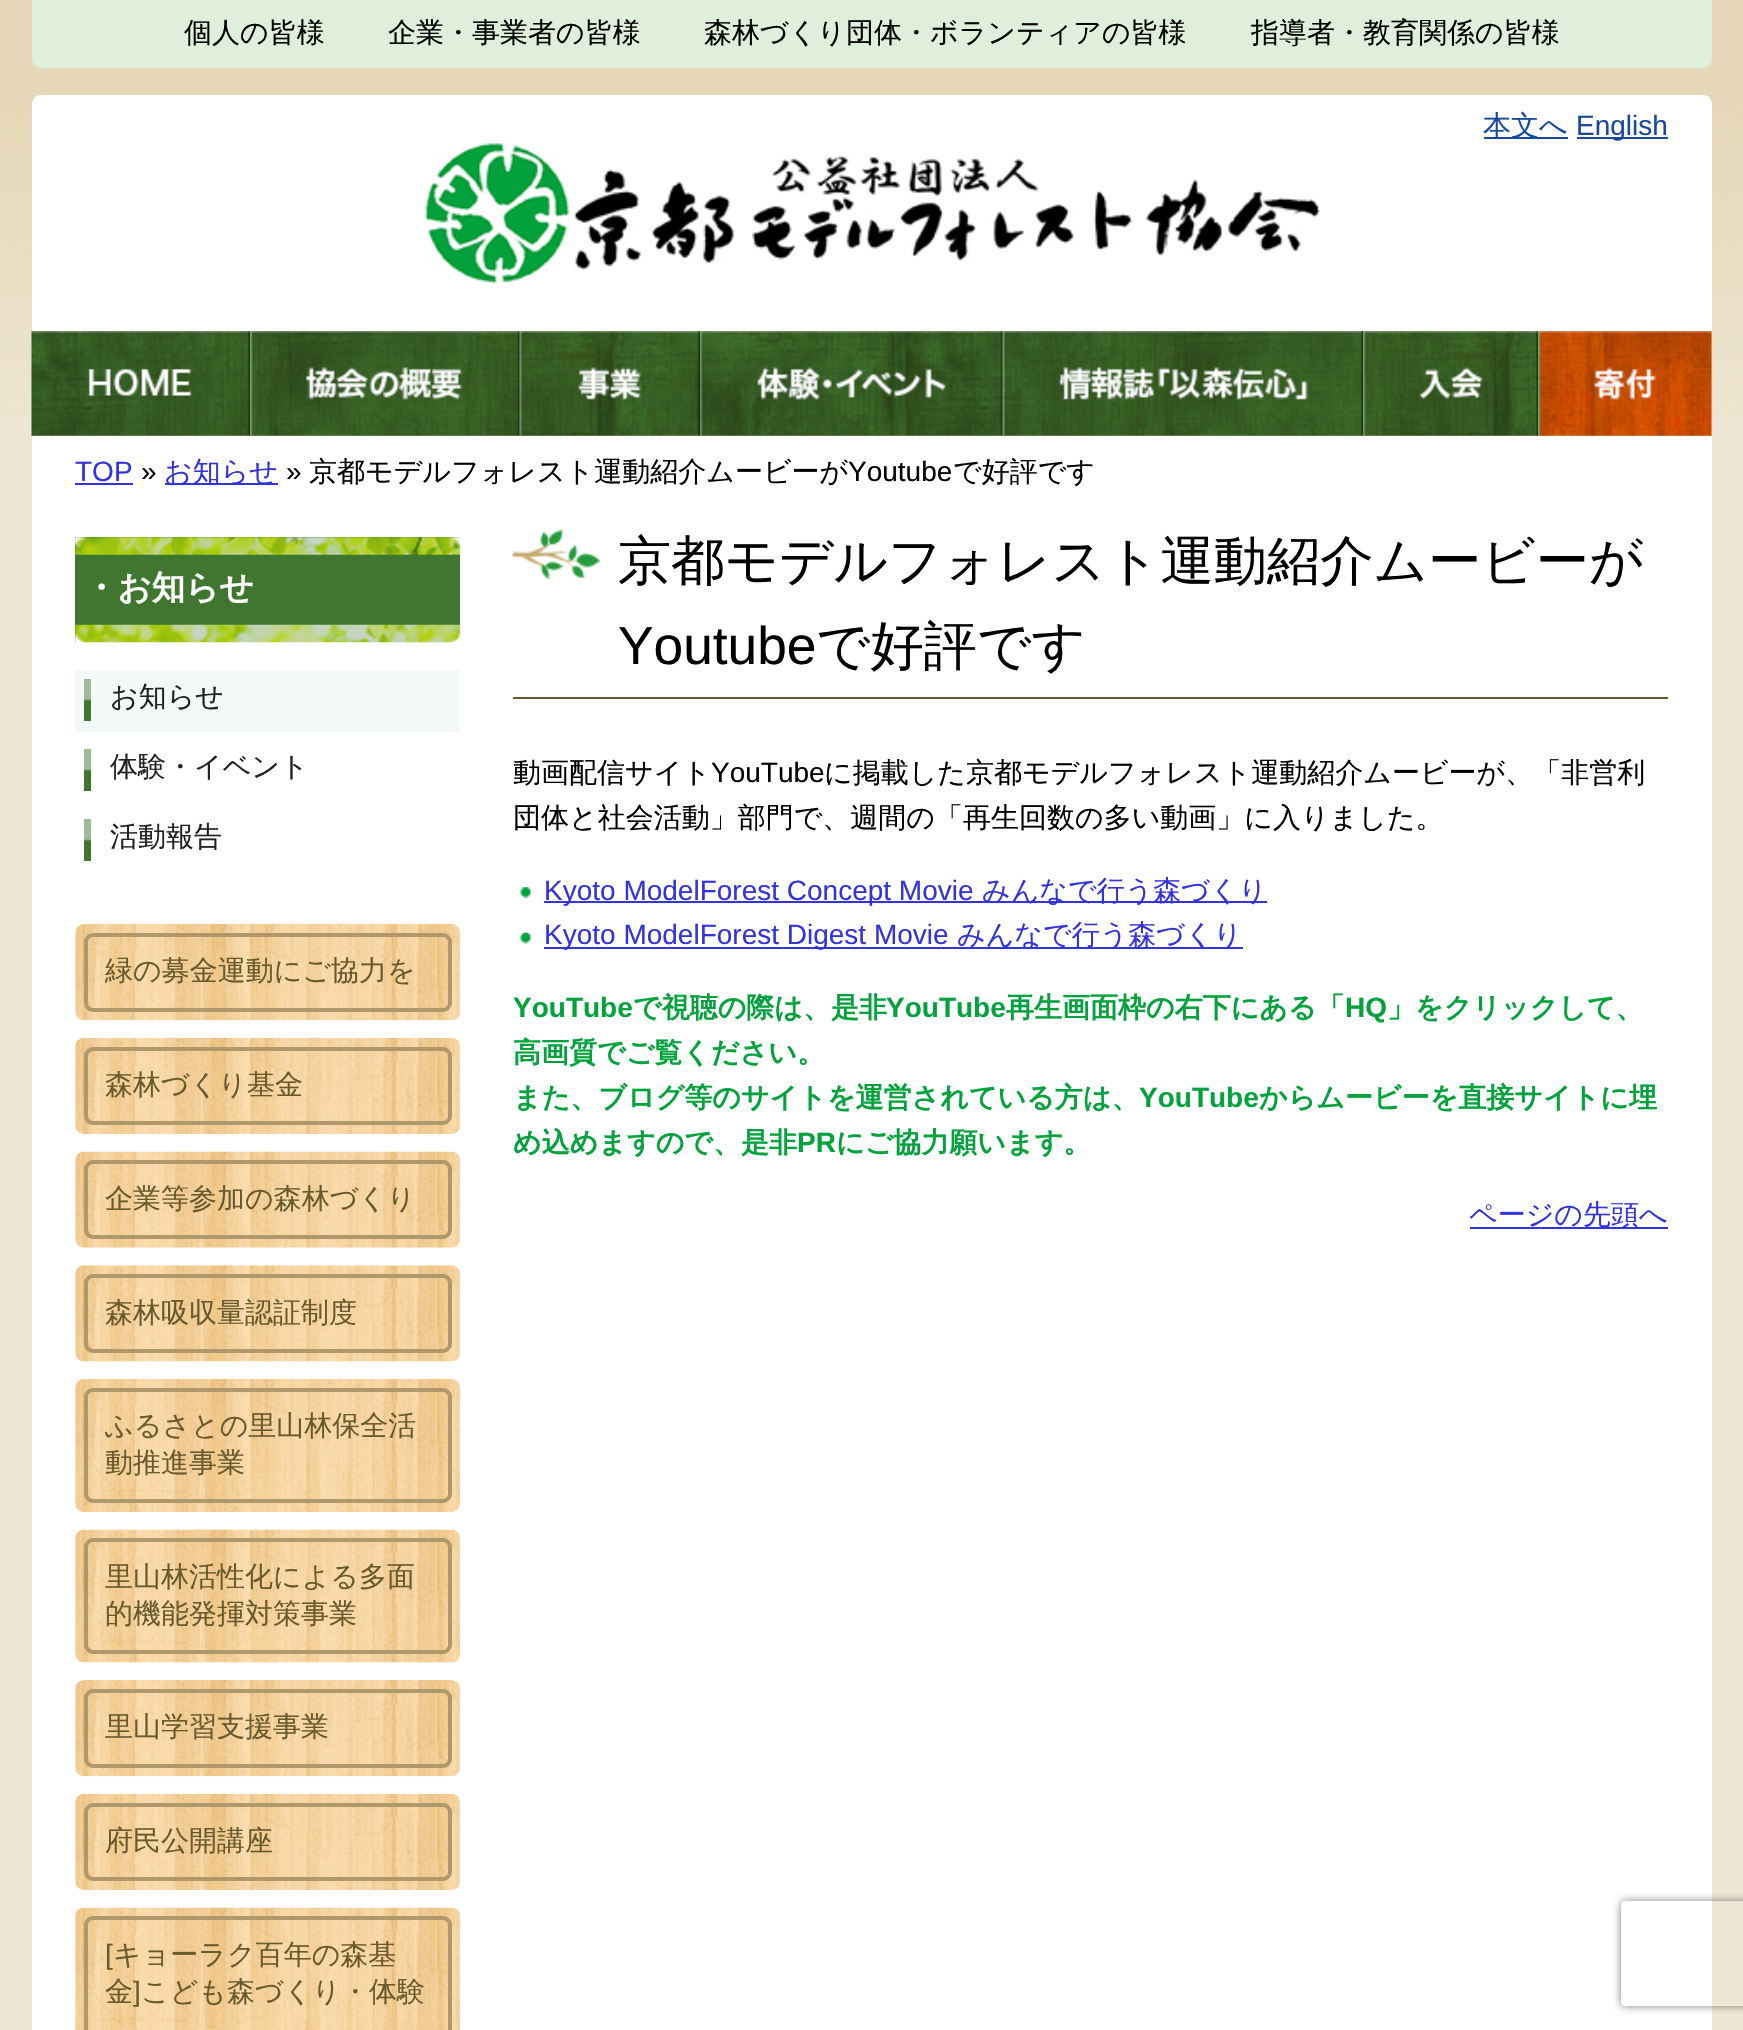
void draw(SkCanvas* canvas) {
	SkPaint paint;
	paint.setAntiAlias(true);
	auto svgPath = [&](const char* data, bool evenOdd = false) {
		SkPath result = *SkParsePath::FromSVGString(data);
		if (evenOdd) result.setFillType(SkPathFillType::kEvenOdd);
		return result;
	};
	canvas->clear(0xffefe7d4);
	canvas->drawImageRect(SkImages::DeferredFromEncodedData(SkData::MakeFromFileName("img1.png")), SkRect::MakeXYWH(0, 0, 1743, 415), SkSamplingOptions());
	paint.setColor(0xffffffff);
	canvas->drawRect(SkRect::MakeXYWH(32, 436, 1680, 1594), paint);
	paint.setColor(0xffe5d8b8);
	canvas->drawRect(SkRect::MakeXYWH(32, 143, 1680, 293), paint);
	paint.setColor(0xffe0eedc);
	canvas->drawPath(svgPath("M32 0H1712V59C1712 64 1708 68 1703 68H41C36 68 32 64 32 59Z"), paint);
	SkFont f1(fontMgr->matchFamilyStyle("WenQuanYi Zen Hei", SkFontStyle(500, SkFontStyle::kNormal_Width, SkFontStyle::kUpright_Slant)), 28);
	f1.setSubpixel(true);
	paint.setColor(0xff000000);
	canvas->drawString("個人の皆様", 184, 42, f1, paint);
	canvas->drawString("企業・事業者の皆様", 388, 42, f1, paint);
	canvas->drawString("森林づくり団体・ボランティアの皆様", 704, 42, f1, paint);
	canvas->drawString("指導者・教育関係の皆様", 1251, 42, f1, paint);
	canvas->drawImageRect(SkImages::DeferredFromEncodedData(SkData::MakeFromFileName("img3.png")), SkRect::MakeXYWH(31, 330, 220, 106), SkSamplingOptions());
	paint.setColor(0xffffffff);
	canvas->drawPath(svgPath("M41 95H1703C1708 95 1712 99 1712 104V331H32V104C32 99 36 95 41 95Z"), paint);
	canvas->drawImageRect(SkImages::DeferredFromEncodedData(SkData::MakeFromFileName("img2.png")), SkRect::MakeXYWH(424, 143, 896, 141), SkSamplingOptions());
	paint.setColor(0xff18499d);
	canvas->drawRect(SkRect::MakeXYWH(1484, 137, 84, 2), paint);
	canvas->drawString("本文へ", 1483, 135, f1, paint);
	canvas->drawRect(SkRect::MakeXYWH(1577, 137, 91, 2), paint);
	SkFont f2(fontMgr->matchFamilyStyle("Liberation Sans", SkFontStyle::Normal()), 28);
	f2.setSubpixel(true);
	canvas->drawString("English", 1576, 135, f2, paint);
	canvas->drawImageRect(SkImages::DeferredFromEncodedData(SkData::MakeFromFileName("img4.png")), SkRect::MakeXYWH(250, 331, 270, 105), SkSamplingOptions());
	canvas->drawImageRect(SkImages::DeferredFromEncodedData(SkData::MakeFromFileName("img5.png")), SkRect::MakeXYWH(519, 331, 181, 105), SkSamplingOptions());
	canvas->drawImageRect(SkImages::DeferredFromEncodedData(SkData::MakeFromFileName("img6.png")), SkRect::MakeXYWH(700, 331, 303, 105), SkSamplingOptions());
	canvas->drawImageRect(SkImages::DeferredFromEncodedData(SkData::MakeFromFileName("img7.png")), SkRect::MakeXYWH(1002, 331, 362, 105), SkSamplingOptions());
	canvas->drawImageRect(SkImages::DeferredFromEncodedData(SkData::MakeFromFileName("img8.png")), SkRect::MakeXYWH(1363, 331, 176, 105), SkSamplingOptions());
	canvas->drawImageRect(SkImages::DeferredFromEncodedData(SkData::MakeFromFileName("img9.png")), SkRect::MakeXYWH(1538, 331, 174, 105), SkSamplingOptions());
	paint.setColor(0xff3333dd);
	canvas->drawString("TOP", 75, 481, f2, paint);
	canvas->drawRect(SkRect::MakeXYWH(75, 483, 58, 2), paint);
	paint.setColor(0xff000000);
	canvas->drawString("»", 141, 481, f2, paint);
	paint.setColor(0xff3333dd);
	canvas->drawRect(SkRect::MakeXYWH(165, 483, 113, 2), paint);
	canvas->drawString("お知らせ", 164, 481, f1, paint);
	paint.setColor(0xff000000);
	canvas->drawString("»", 286, 481, f2, paint);
	canvas->drawString("京都モデルフォレスト運動紹介ムービーが", 309, 481, f1, paint);
	canvas->drawString("Youtube", 848, 481, f2, paint);
	canvas->drawString("で好評です", 953, 481, f1, paint);
	paint.setColor(0xff417630);
	canvas->drawRect(SkRect::MakeXYWH(75, 537, 385, 105), paint);
	canvas->drawImageRect(SkImages::DeferredFromEncodedData(SkData::MakeFromFileName("img10.png")), SkRect::MakeXYWH(75, 537, 386, 106), SkSamplingOptions());
	SkFont f3(fontMgr->matchFamilyStyle("WenQuanYi Zen Hei", SkFontStyle::Bold()), 33.5);
	f3.setSubpixel(true);
	paint.setColor(0xffffffff);
	canvas->drawString("・お知らせ", 84, 599, f3, paint);
	paint.setColor(0xfff3f9f9);
	canvas->drawRect(SkRect::MakeXYWH(75, 670, 385, 62), paint);
	canvas->drawImageRect(SkImages::DeferredFromEncodedData(SkData::MakeFromFileName("img11.png")), SkRect::MakeXYWH(84, 679, 7, 42), SkSamplingOptions());
	paint.setColor(0xff222222);
	canvas->drawString("お知らせ", 110, 706, f1, paint);
	canvas->drawImageRect(SkImages::DeferredFromEncodedData(SkData::MakeFromFileName("img11.png")), SkRect::MakeXYWH(84, 749, 7, 42), SkSamplingOptions());
	canvas->drawString("体験・イベント", 110, 776, f1, paint);
	canvas->drawImageRect(SkImages::DeferredFromEncodedData(SkData::MakeFromFileName("img11.png")), SkRect::MakeXYWH(84, 819, 7, 42), SkSamplingOptions());
	canvas->drawString("活動報告", 110, 846, f1, paint);
	canvas->drawImageRect(SkImages::DeferredFromEncodedData(SkData::MakeFromFileName("img12.png")), SkRect::MakeXYWH(75, 924, 386, 97), SkSamplingOptions());
	paint.setStroke(true);
	paint.setStrokeWidth(4);
	paint.setColor(0xffae986c);
	canvas->drawRoundRect(SkRect::MakeXYWH(86, 935, 364, 75), 7, 7, paint);
	paint.setStroke(false);
	paint.setColor(0xff695a2e);
	canvas->drawString("緑の募金運動にご協力を", 105, 980, f1, paint);
	canvas->drawImageRect(SkImages::DeferredFromEncodedData(SkData::MakeFromFileName("img13.png")), SkRect::MakeXYWH(75, 1037, 386, 97), SkSamplingOptions());
	paint.setStroke(true);
	paint.setColor(0xffae986c);
	canvas->drawRoundRect(SkRect::MakeXYWH(86, 1049, 364, 74), 7, 7, paint);
	paint.setStroke(false);
	paint.setColor(0xff695a2e);
	canvas->drawString("森林づくり基金", 105, 1094, f1, paint);
	canvas->drawImageRect(SkImages::DeferredFromEncodedData(SkData::MakeFromFileName("img14.png")), SkRect::MakeXYWH(75, 1151, 386, 97), SkSamplingOptions());
	paint.setStroke(true);
	paint.setColor(0xffae986c);
	canvas->drawRoundRect(SkRect::MakeXYWH(86, 1162, 364, 75), 7, 7, paint);
	paint.setStroke(false);
	paint.setColor(0xff695a2e);
	canvas->drawString("企業等参加の森林づくり", 105, 1208, f1, paint);
	canvas->drawImageRect(SkImages::DeferredFromEncodedData(SkData::MakeFromFileName("img15.png")), SkRect::MakeXYWH(75, 1265, 386, 97), SkSamplingOptions());
	paint.setStroke(true);
	paint.setColor(0xffae986c);
	canvas->drawRoundRect(SkRect::MakeXYWH(86, 1276, 364, 75), 7, 7, paint);
	paint.setStroke(false);
	paint.setColor(0xff695a2e);
	canvas->drawString("森林吸収量認証制度", 105, 1322, f1, paint);
	canvas->drawImageRect(SkImages::DeferredFromEncodedData(SkData::MakeFromFileName("img16.png")), SkRect::MakeXYWH(75, 1379, 386, 133), SkSamplingOptions());
	paint.setStroke(true);
	paint.setColor(0xffae986c);
	canvas->drawRoundRect(SkRect::MakeXYWH(86, 1390, 364, 111), 7, 7, paint);
	paint.setStroke(false);
	paint.setColor(0xff695a2e);
	canvas->drawString("ふるさとの里山林保全活", 105, 1435, f1, paint);
	canvas->drawString("動推進事業", 105, 1472, f1, paint);
	canvas->drawImageRect(SkImages::DeferredFromEncodedData(SkData::MakeFromFileName("img17.png")), SkRect::MakeXYWH(75, 1529, 386, 134), SkSamplingOptions());
	paint.setStroke(true);
	paint.setColor(0xffae986c);
	canvas->drawRoundRect(SkRect::MakeXYWH(86, 1540, 364, 112), 7, 7, paint);
	paint.setStroke(false);
	paint.setColor(0xff695a2e);
	canvas->drawString("里山林活性化による多面", 105, 1586, f1, paint);
	canvas->drawString("的機能発揮対策事業", 105, 1623, f1, paint);
	canvas->drawImageRect(SkImages::DeferredFromEncodedData(SkData::MakeFromFileName("img18.png")), SkRect::MakeXYWH(75, 1680, 386, 97), SkSamplingOptions());
	paint.setStroke(true);
	paint.setColor(0xffae986c);
	canvas->drawRoundRect(SkRect::MakeXYWH(86, 1691, 364, 75), 7, 7, paint);
	paint.setStroke(false);
	paint.setColor(0xff695a2e);
	canvas->drawString("里山学習支援事業", 105, 1736, f1, paint);
	canvas->drawImageRect(SkImages::DeferredFromEncodedData(SkData::MakeFromFileName("img19.png")), SkRect::MakeXYWH(75, 1793, 386, 97), SkSamplingOptions());
	paint.setStroke(true);
	paint.setColor(0xffae986c);
	canvas->drawRoundRect(SkRect::MakeXYWH(86, 1805, 364, 74), 7, 7, paint);
	paint.setStroke(false);
	paint.setColor(0xff695a2e);
	canvas->drawString("府民公開講座", 105, 1850, f1, paint);
	canvas->drawImageRect(SkImages::DeferredFromEncodedData(SkData::MakeFromFileName("img20.png")), SkRect::MakeXYWH(75, 1907, 386, 123), SkSamplingOptions());
	paint.setStroke(true);
	paint.setColor(0xffae986c);
	canvas->drawRoundRect(SkRect::MakeXYWH(86, 1918, 364, 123), 7, 7, paint);
	paint.setStroke(false);
	paint.setColor(0xff695a2e);
	canvas->drawString("[", 105, 1964, f2, paint);
	canvas->drawString("キョーラク百年の森基", 113, 1964, f1, paint);
	canvas->drawString("金", 105, 2001, f1, paint);
	canvas->drawString("]", 133, 2001, f2, paint);
	canvas->drawString("こども森づくり・体験", 141, 2001, f1, paint);
	canvas->drawImageRect(SkImages::DeferredFromEncodedData(SkData::MakeFromFileName("img21.png")), SkRect::MakeXYWH(512, 530, 89, 50), SkSamplingOptions());
	canvas->drawRect(SkRect::MakeXYWH(513, 697, 1155, 2), paint);
	SkFont f4(fontMgr->matchFamilyStyle("WenQuanYi Zen Hei", SkFontStyle(500, SkFontStyle::kNormal_Width, SkFontStyle::kUpright_Slant)), 53.25);
	f4.setSubpixel(true);
	paint.setColor(0xff000000);
	canvas->drawString("京都モデルフォレスト運動紹介ムービーが", 618, 579, f4, paint);
	SkFont f5(fontMgr->matchFamilyStyle("Liberation Sans", SkFontStyle::Normal()), 53.25);
	f5.setSubpixel(true);
	canvas->drawString("Youtube", 618, 664, f5, paint);
	canvas->drawString("で好評です", 816, 664, f4, paint);
	canvas->drawString("動画配信サイト", 513, 782, f1, paint);
	canvas->drawString("YouTube", 711, 782, f2, paint);
	canvas->drawString("に掲載した京都モデルフォレスト運動紹介ムービーが、「非営利", 824, 782, f1, paint);
	canvas->drawString("団体と社会活動」部門で、週間の「再生回数の多い動画」に入りました。", 513, 827, f1, paint);
	canvas->drawImageRect(SkImages::DeferredFromEncodedData(SkData::MakeFromFileName("img22.png")), SkRect::MakeXYWH(519, 887, 13, 12), SkSamplingOptions());
	paint.setColor(0xff3333dd);
	canvas->drawRect(SkRect::MakeXYWH(544, 901, 723, 2), paint);
	canvas->drawString("Kyoto ModelForest Concept Movie", 544, 900, f2, paint);
	canvas->drawString("みんなで行う森づくり", 982, 900, f1, paint);
	canvas->drawImageRect(SkImages::DeferredFromEncodedData(SkData::MakeFromFileName("img23.png")), SkRect::MakeXYWH(519, 932, 13, 12), SkSamplingOptions());
	canvas->drawRect(SkRect::MakeXYWH(544, 947, 699, 2), paint);
	canvas->drawString("Kyoto ModelForest Digest Movie", 544, 944, f2, paint);
	canvas->drawString("みんなで行う森づくり", 957, 944, f1, paint);
	SkFont f6(fontMgr->matchFamilyStyle("Liberation Sans", SkFontStyle::Bold()), 28);
	f6.setSubpixel(true);
	paint.setColor(0xff02a23c);
	canvas->drawString("YouTube", 513, 1017, f6, paint);
	SkFont f7(fontMgr->matchFamilyStyle("WenQuanYi Zen Hei", SkFontStyle::Bold()), 28);
	f7.setSubpixel(true);
	canvas->drawString("で視聴の際は、是非", 633, 1017, f7, paint);
	canvas->drawString("YouTube", 886, 1017, f6, paint);
	canvas->drawString("再生画面枠の右下にある「", 1006, 1017, f7, paint);
	canvas->drawString("HQ", 1345, 1017, f6, paint);
	canvas->drawString("」をクリックして、", 1387, 1017, f7, paint);
	canvas->drawString("高画質でご覧ください。", 513, 1062, f7, paint);
	canvas->drawString("また、ブログ等のサイトを運営されている方は、", 513, 1107, f7, paint);
	canvas->drawString("YouTube", 1139, 1107, f6, paint);
	canvas->drawString("からムービーを直接サイトに埋", 1259, 1107, f7, paint);
	canvas->drawString("め込めますので、是非", 513, 1152, f7, paint);
	canvas->drawString("PR", 797, 1152, f6, paint);
	canvas->drawString("にご協力願います。", 836, 1152, f7, paint);
	paint.setColor(0xff3333dd);
	canvas->drawRect(SkRect::MakeXYWH(1470, 1227, 198, 2), paint);
	canvas->drawString("ページの先頭へ", 1469, 1224, f1, paint);
	canvas->save();
	canvas->clipPath(svgPath("M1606 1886H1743V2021H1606ZM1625 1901H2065C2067 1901 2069 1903 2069 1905V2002C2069 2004 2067 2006 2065 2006H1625C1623 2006 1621 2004 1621 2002V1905C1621 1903 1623 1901 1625 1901Z", true), true);
	paint.setColor(0xff808080);
	paint.setMaskFilter(SkMaskFilter::MakeBlur(kNormal_SkBlurStyle, 4.5));
	canvas->drawRoundRect(SkRect::MakeXYWH(1621, 1901, 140, 105), 4, 4, paint);
	paint.setMaskFilter(nullptr);
	canvas->restore();
}
